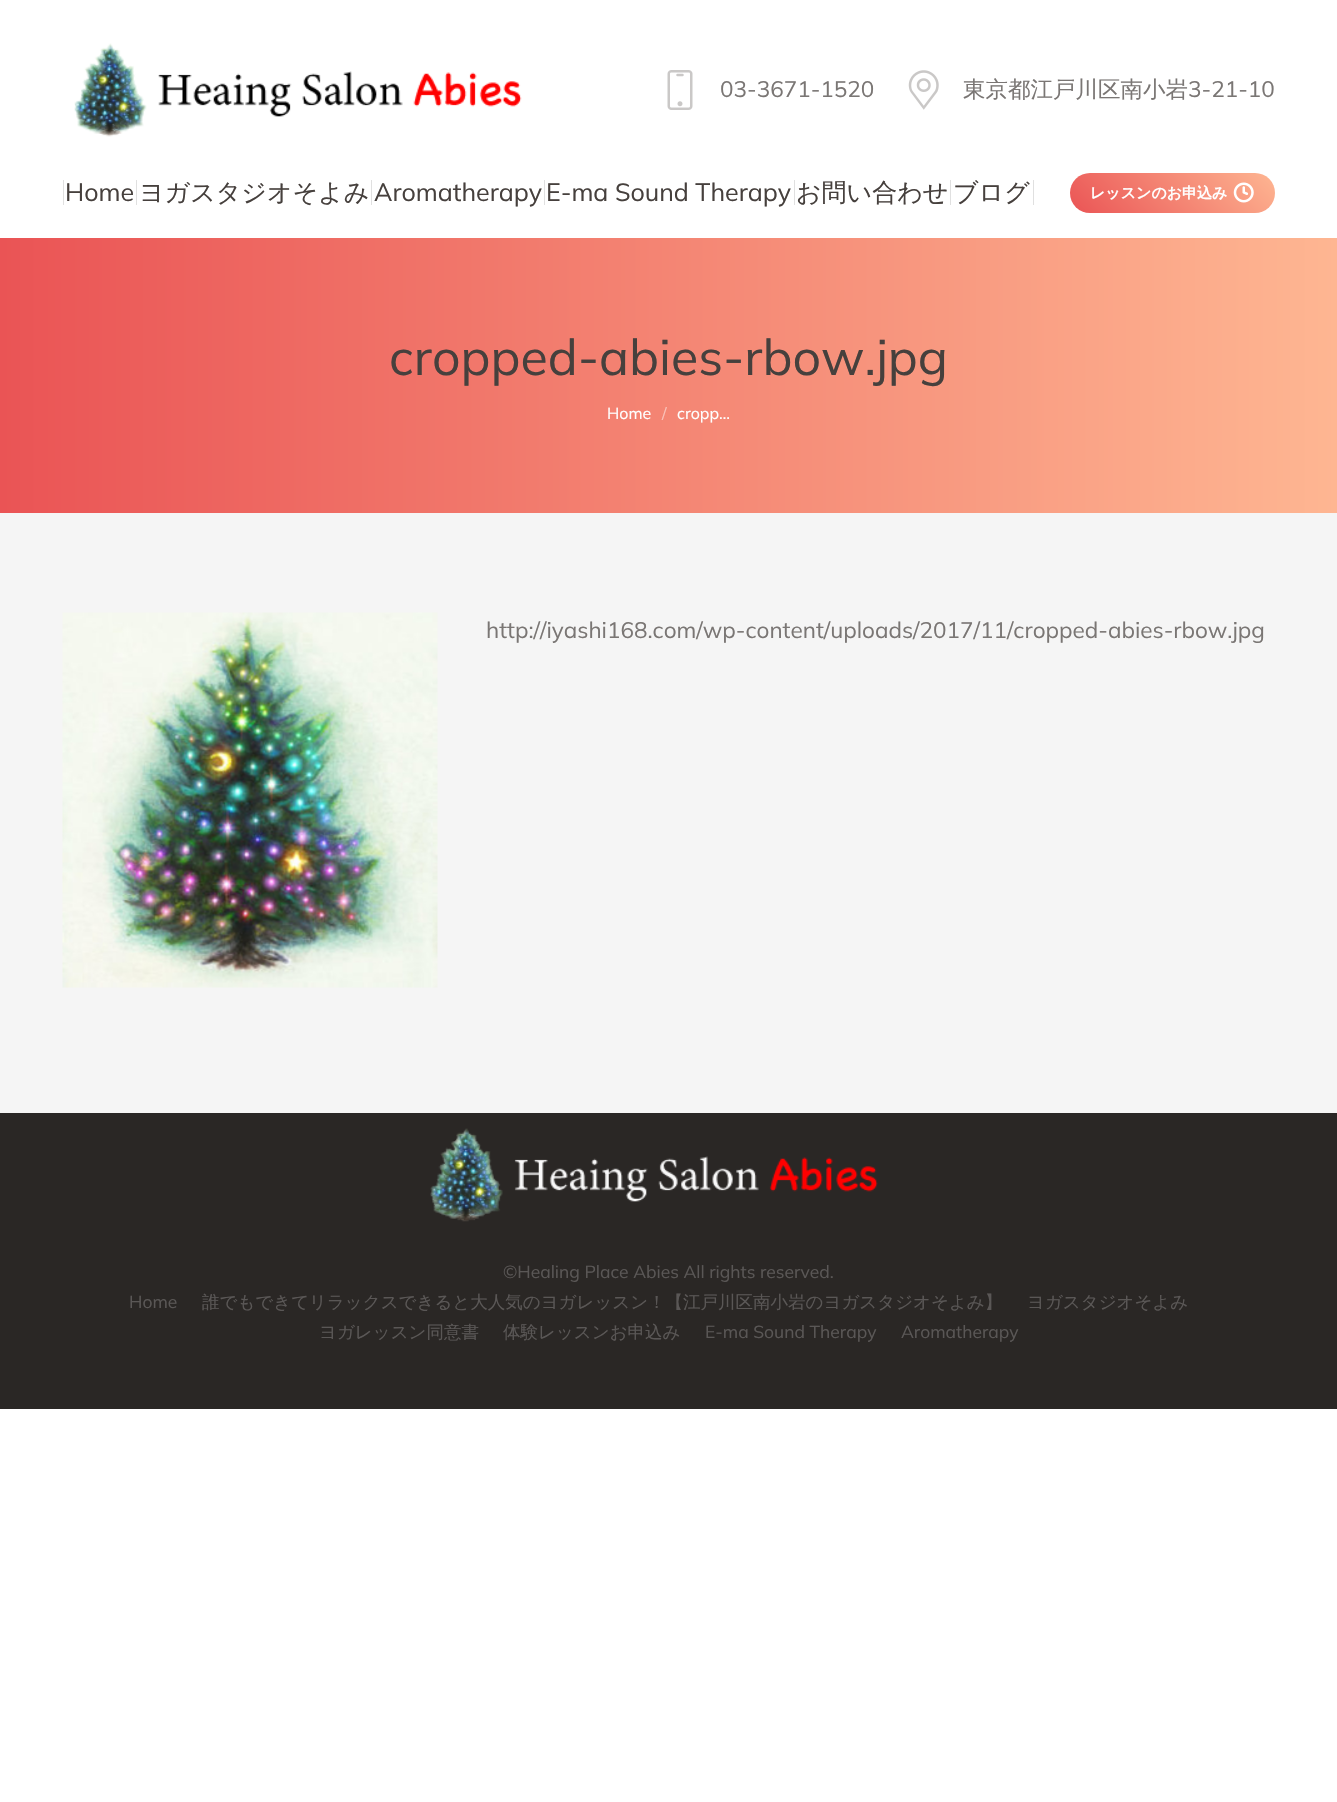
void draw(SkCanvas* canvas) {
	SkPaint paint;
	paint.setAntiAlias(true);
	canvas->clear(0xffffffff);
	paint.setColor(0xfff5f5f5);
	canvas->drawRect(SkRect::MakeXYWH(0, 513, 1337, 600), paint);
	canvas->drawImageRect(SkImages::DeferredFromEncodedData(SkData::MakeFromFileName("img1.png")), SkRect::MakeXYWH(74, 43, 448, 94), SkSamplingOptions());
	canvas->drawImageRect(SkImages::DeferredFromEncodedData(SkData::MakeFromFileName("img2.png")), SkRect::MakeXYWH(667, 70, 26, 40), SkSamplingOptions());
	SkFont f1(fontMgr->matchFamilyStyle("Mulish", SkFontStyle::Normal()), 22.5);
	f1.setSubpixel(true);
	paint.setColor(0xff7a7674);
	canvas->drawString("03-3671-1520", 720, 97, f1, paint);
	canvas->drawImageRect(SkImages::DeferredFromEncodedData(SkData::MakeFromFileName("img3.png")), SkRect::MakeXYWH(908, 70, 31, 40), SkSamplingOptions());
	SkFont f2(fontMgr->matchFamilyStyle("WenQuanYi Zen Hei", SkFontStyle(500, SkFontStyle::kNormal_Width, SkFontStyle::kUpright_Slant)), 22.5);
	f2.setSubpixel(true);
	canvas->drawString("東京都江戸川区南小岩", 963, 97, f2, paint);
	canvas->drawString("3-21-10", 1188, 97, f1, paint);
	paint.setColor(0xffe0e0e0);
	canvas->drawRect(SkRect::MakeXYWH(63, 180, 1, 25), paint);
	SkFont f3(fontMgr->matchFamilyStyle("Mulish", SkFontStyle::Normal()), 25);
	f3.setSubpixel(true);
	paint.setColor(0xff46403d);
	canvas->drawString("Home", 65, 201, f3, paint);
	paint.setColor(0xffe0e0e0);
	canvas->drawRect(SkRect::MakeXYWH(136, 180, 1, 25), paint);
	SkFont f4(fontMgr->matchFamilyStyle("WenQuanYi Zen Hei", SkFontStyle(500, SkFontStyle::kNormal_Width, SkFontStyle::kUpright_Slant)), 25);
	f4.setSubpixel(true);
	paint.setColor(0xff46403d);
	canvas->drawString("ヨガスタジオそよみ", 139, 201, f4, paint);
	paint.setColor(0xffe0e0e0);
	canvas->drawRect(SkRect::MakeXYWH(371, 180, 1, 25), paint);
	paint.setColor(0xff46403d);
	canvas->drawString("Aromatherapy", 374, 201, f3, paint);
	paint.setColor(0xffe0e0e0);
	canvas->drawRect(SkRect::MakeXYWH(544, 180, 1, 25), paint);
	paint.setColor(0xff46403d);
	canvas->drawString("E-ma Sound Therapy", 546, 201, f3, paint);
	paint.setColor(0xffe0e0e0);
	canvas->drawRect(SkRect::MakeXYWH(794, 180, 1, 25), paint);
	paint.setColor(0xff46403d);
	canvas->drawString("お問い合わせ", 796, 201, f4, paint);
	paint.setColor(0xffe0e0e0);
	canvas->drawRect(SkRect::MakeXYWH(950, 180, 1, 25), paint);
	paint.setColor(0xff46403d);
	canvas->drawString("ブログ", 953, 201, f4, paint);
	paint.setColor(0xffe0e0e0);
	canvas->drawRect(SkRect::MakeXYWH(1033, 180, 1, 25), paint);
	{
		const SkColor colors[] = {0xffea5455, 0xfffeb692};
		const float stops[] = {0, 1};
		const SkPoint ends[] = {{1111, 254}, {1234, 131}};
		paint.setShader(SkGradientShader::MakeLinear(ends, colors, stops, 2, SkTileMode::kClamp));
		paint.setAlpha(255);
	}
	canvas->drawRoundRect(SkRect::MakeXYWH(1070, 173, 205, 40), 20, 20, paint);
	SkFont f5(fontMgr->matchFamilyStyle("WenQuanYi Zen Hei", SkFontStyle::Bold()), 15);
	f5.setSubpixel(true);
	paint.setShader(nullptr);
	paint.setColor(0xffffffff);
	canvas->drawString("レッスンのお申込み", 1090, 198, f5, paint);
	canvas->drawImageRect(SkImages::DeferredFromEncodedData(SkData::MakeFromFileName("img4.png")), SkRect::MakeXYWH(1233, 182, 21, 21), SkSamplingOptions());
	{
		const SkColor colors[] = {0xffea5455, 0xfffeb692};
		const float stops[] = {0, 1};
		const SkPoint ends[] = {{0, 375}, {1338, 375}};
		paint.setShader(SkGradientShader::MakeLinear(ends, colors, stops, 2, SkTileMode::kClamp));
		paint.setAlpha(255);
	}
	canvas->drawRect(SkRect::MakeXYWH(0, 238, 1337, 275), paint);
	SkFont f6(fontMgr->matchFamilyStyle("Mulish", SkFontStyle::Normal()), 50);
	f6.setSubpixel(true);
	paint.setShader(nullptr);
	paint.setColor(0xff46403d);
	canvas->drawString("cropped-abies-rbow.jpg", 389, 375, f6, paint);
	SkFont f7(fontMgr->matchFamilyStyle("Mulish", SkFontStyle::Normal()), 16);
	f7.setSubpixel(true);
	paint.setColor(0xffffffff);
	canvas->drawString("Home", 607, 419, f7, paint);
	paint.setColor(0xfffac2b9);
	canvas->drawString("/", 662, 419, f7, paint);
	paint.setColor(0xffffffff);
	canvas->drawString("cropp…", 677, 419, f7, paint);
	canvas->drawImageRect(SkImages::DeferredFromEncodedData(SkData::MakeFromFileName("img5.png")), SkRect::MakeXYWH(62, 612, 376, 376), SkSamplingOptions());
	paint.setColor(0xff7a7674);
	canvas->drawString("http://iyashi168.com/wp-content/uploads/2017/11/cropped-abies-rbow.jpg", 486, 638, f1, paint);
	paint.setColor(0xff2a2725);
	canvas->drawRect(SkRect::MakeXYWH(0, 1113, 1337, 296), paint);
	canvas->drawImageRect(SkImages::DeferredFromEncodedData(SkData::MakeFromFileName("img6.png")), SkRect::MakeXYWH(430, 1128, 448, 94), SkSamplingOptions());
	SkFont f8(fontMgr->matchFamilyStyle("Mulish", SkFontStyle::Normal()), 17.5);
	f8.setSubpixel(true);
	paint.setColor(0xff5a5756);
	canvas->drawString("©Healing Place Abies All rights reserved.", 503, 1278, f8, paint);
	canvas->drawString("Home", 129, 1308, f8, paint);
	SkFont f9(fontMgr->matchFamilyStyle("WenQuanYi Zen Hei", SkFontStyle(500, SkFontStyle::kNormal_Width, SkFontStyle::kUpright_Slant)), 17.5);
	f9.setSubpixel(true);
	canvas->drawString("誰でもできてリラックスできると大人気のヨガレッスン！【江戸川区南小岩のヨガスタジオそよみ】", 202, 1308, f9, paint);
	canvas->drawString("ヨガスタジオそよみ", 1027, 1308, f9, paint);
	canvas->drawString("ヨガレッスン同意書", 319, 1338, f9, paint);
	canvas->drawString("体験レッスンお申込み", 503, 1338, f9, paint);
	canvas->drawString("E-ma Sound Therapy", 705, 1338, f8, paint);
	canvas->drawString("Aromatherapy", 901, 1338, f8, paint);
}
